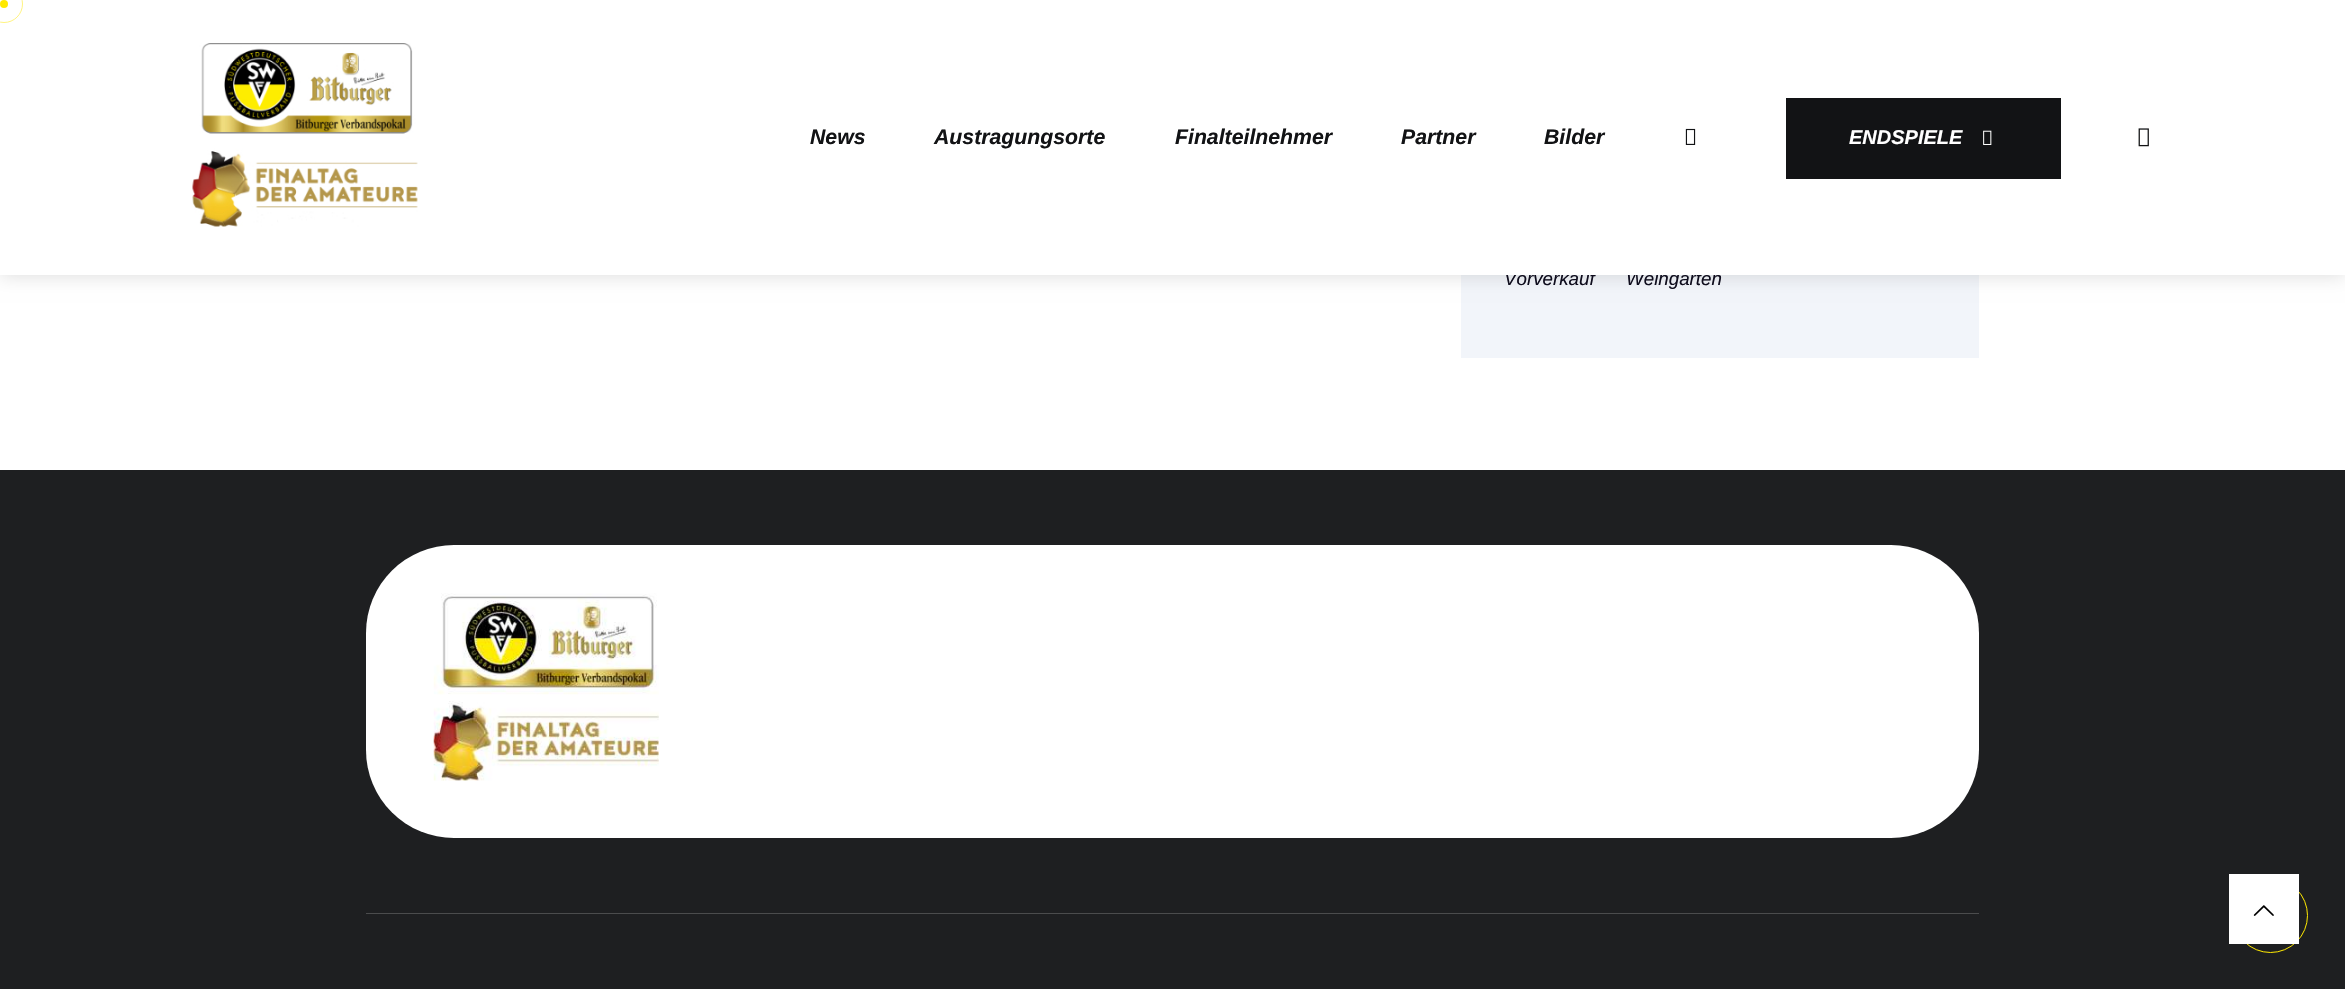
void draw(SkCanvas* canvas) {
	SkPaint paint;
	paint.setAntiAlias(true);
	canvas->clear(0xffffffff);
	paint.setColor(0xfff2f5fa);
	canvas->drawRect(SkRect::MakeXYWH(1461, 275, 518, 83), paint);
	paint.setColor(0x21000000);
	paint.setMaskFilter(SkMaskFilter::MakeBlur(kNormal_SkBlurStyle, 9));
	canvas->drawRect(SkRect::MakeXYWH(0, 1, 2345, 275), paint);
	paint.setMaskFilter(nullptr);
	SkFont f1(fontMgr->matchFamilyStyle("Liberation Sans", SkFontStyle::Italic()), 18.75);
	f1.setSubpixel(true);
	paint.setColor(0xff0f0d1d);
	canvas->drawString("Vorverkauf", 1504, 285, f1, paint);
	canvas->drawString("Weingarten", 1626, 285, f1, paint);
	paint.setColor(0xffffffff);
	canvas->drawRect(SkRect::MakeXYWH(0, 0, 2345, 275), paint);
	paint.setStroke(true);
	paint.setStrokeWidth(1);
	paint.setColor(0xfffff480);
	canvas->drawCircle(4, 4, 18.5, paint);
	paint.setStroke(false);
	paint.setColor(0xffffe900);
	canvas->drawCircle(4, 4, 4, paint);
	canvas->drawImageRect(SkImages::DeferredFromEncodedData(SkData::MakeFromFileName("img1.png")), SkRect::MakeXYWH(192, 43, 226, 184), SkSamplingOptions());
	SkFont f2(fontMgr->matchFamilyStyle("Liberation Sans", SkFontStyle::BoldItalic()), 21.25);
	f2.setSubpixel(true);
	paint.setColor(0xff121315);
	canvas->drawString("News", 810, 144, f2, paint);
	canvas->drawString("Austragungsorte", 934, 144, f2, paint);
	canvas->drawString("Finalteilnehmer", 1175, 144, f2, paint);
	canvas->drawString("Partner", 1401, 144, f2, paint);
	canvas->drawString("Bilder", 1544, 144, f2, paint);
	canvas->drawImageRect(SkImages::DeferredFromEncodedData(SkData::MakeFromFileName("img2.png")), SkRect::MakeXYWH(1685, 128, 11, 17), SkSamplingOptions());
	canvas->drawRect(SkRect::MakeXYWH(1786, 98, 275, 81), paint);
	SkFont f3(fontMgr->matchFamilyStyle("Liberation Sans", SkFontStyle::BoldItalic()), 20);
	f3.setSubpixel(true);
	paint.setColor(0xffffffff);
	canvas->drawString("ENDSPIELE", 1849, 144, f3, paint);
	canvas->drawImageRect(SkImages::DeferredFromEncodedData(SkData::MakeFromFileName("img3.png")), SkRect::MakeXYWH(1983, 130, 9, 15), SkSamplingOptions());
	canvas->drawImageRect(SkImages::DeferredFromEncodedData(SkData::MakeFromFileName("img4.png")), SkRect::MakeXYWH(2138, 128, 11, 19), SkSamplingOptions());
	paint.setColor(0xff1e1f21);
	canvas->drawRect(SkRect::MakeXYWH(0, 470, 2345, 519), paint);
	paint.setColor(0xff4b4c4d);
	canvas->drawRect(SkRect::MakeXYWH(366, 913, 1613, 1), paint);
	paint.setColor(0xffffffff);
	canvas->drawRoundRect(SkRect::MakeXYWH(366, 545, 1613, 293), 88, 88, paint);
	canvas->drawImageRect(SkImages::DeferredFromEncodedData(SkData::MakeFromFileName("img5.png")), SkRect::MakeXYWH(433, 593, 226, 188), SkSamplingOptions());
	paint.setStroke(true);
	paint.setColor(0xffffe900);
	canvas->drawCircle(2270.5, 915.5, 37, paint);
	paint.setStroke(false);
	paint.setColor(0xffffffff);
	canvas->drawRect(SkRect::MakeXYWH(2229, 874, 70, 70), paint);
	canvas->drawImageRect(SkImages::DeferredFromEncodedData(SkData::MakeFromFileName("img6.png")), SkRect::MakeXYWH(2253, 905, 21, 11), SkSamplingOptions());
}
